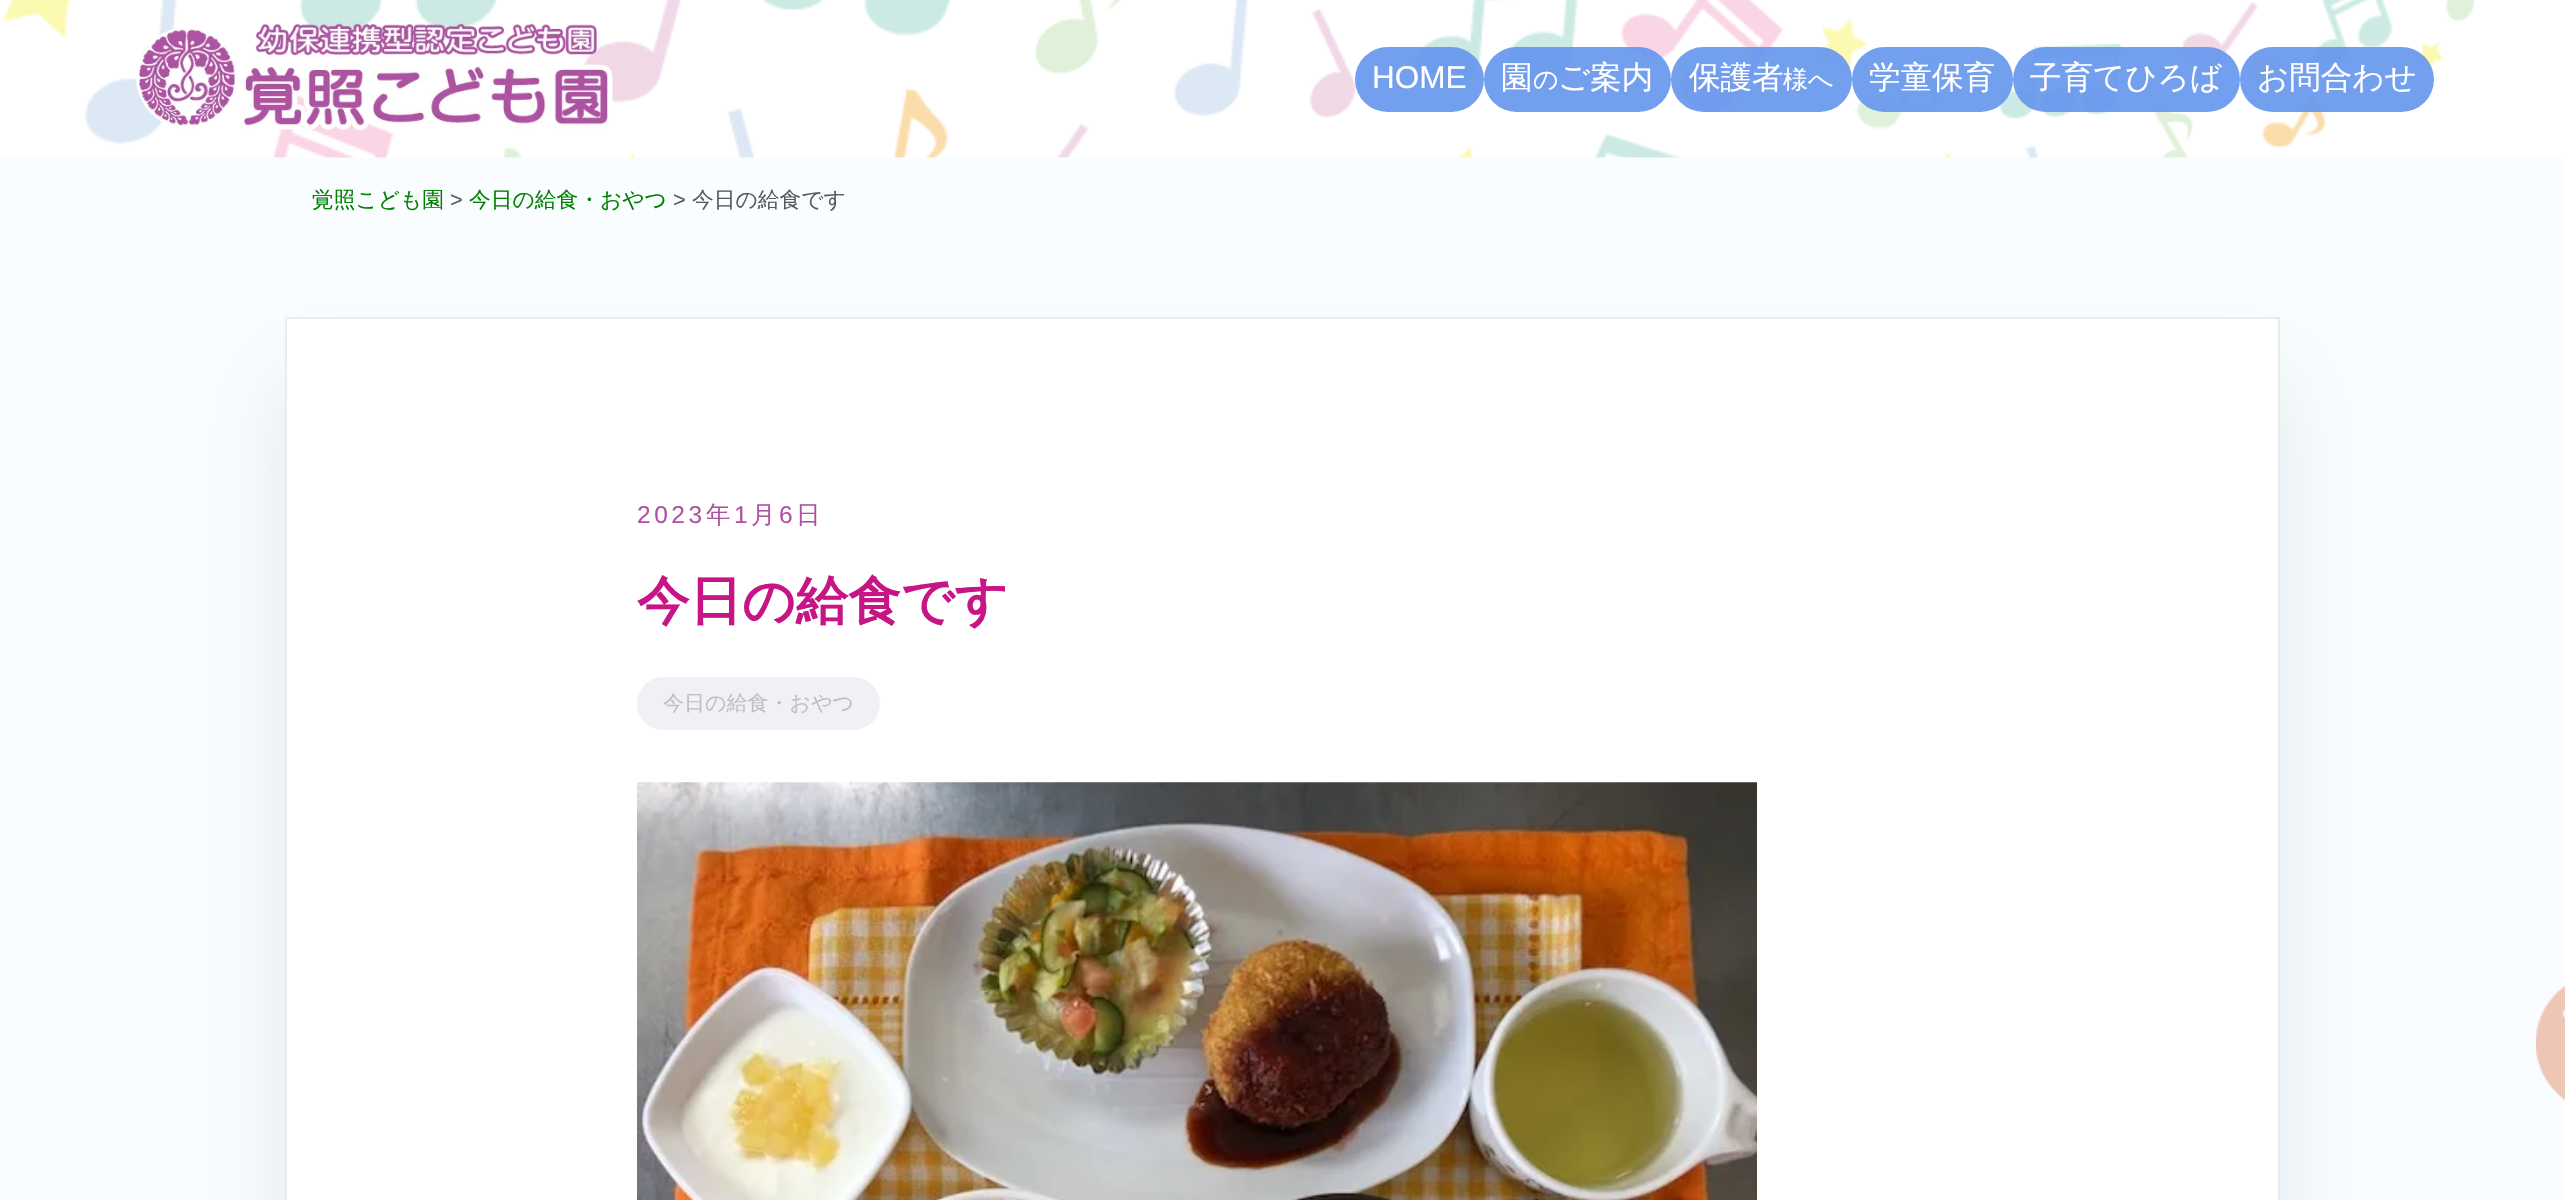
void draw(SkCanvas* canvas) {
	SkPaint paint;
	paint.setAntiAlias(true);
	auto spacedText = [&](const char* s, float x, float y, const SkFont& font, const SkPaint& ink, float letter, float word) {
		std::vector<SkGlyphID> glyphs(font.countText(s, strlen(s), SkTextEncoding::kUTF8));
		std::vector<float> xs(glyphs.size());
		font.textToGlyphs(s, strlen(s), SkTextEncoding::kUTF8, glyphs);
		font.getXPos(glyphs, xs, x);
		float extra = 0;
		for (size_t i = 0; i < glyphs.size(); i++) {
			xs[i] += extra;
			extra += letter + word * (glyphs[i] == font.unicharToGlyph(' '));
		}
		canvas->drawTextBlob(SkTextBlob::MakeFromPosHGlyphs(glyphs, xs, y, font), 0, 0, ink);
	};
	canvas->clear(0xfff9fdff);
	paint.setColor(0xffffffff);
	canvas->drawRect(SkRect::MakeXYWH(0, 0, 2565, 158), paint);
	canvas->drawImageRect(SkImages::DeferredFromEncodedData(SkData::MakeFromFileName("img1.png")), SkRect::MakeXYWH(2, 0, 2473, 158), SkSamplingOptions());
	canvas->drawImageRect(SkImages::DeferredFromEncodedData(SkData::MakeFromFileName("img2.png")), SkRect::MakeXYWH(136, 23, 477, 108), SkSamplingOptions());
	paint.setColor(0xe66495ed);
	canvas->drawRoundRect(SkRect::MakeXYWH(1355, 47, 129, 65), 32.5, 32.5, paint);
	SkFont f1(fontMgr->matchFamilyStyle("Liberation Sans", SkFontStyle::Normal()), 31.5);
	f1.setSubpixel(true);
	paint.setColor(0xffffffff);
	canvas->drawString("HOME", 1372, 88, f1, paint);
	paint.setColor(0xe66495ed);
	canvas->drawRoundRect(SkRect::MakeXYWH(1484, 47, 187, 65), 32.5, 32.5, paint);
	SkFont f2(fontMgr->matchFamilyStyle("WenQuanYi Zen Hei", SkFontStyle(500, SkFontStyle::kNormal_Width, SkFontStyle::kUpright_Slant)), 31.5);
	f2.setSubpixel(true);
	paint.setColor(0xffffffff);
	canvas->drawString("園", 1501, 88, f2, paint);
	SkFont f3(fontMgr->matchFamilyStyle("WenQuanYi Zen Hei", SkFontStyle(500, SkFontStyle::kNormal_Width, SkFontStyle::kUpright_Slant)), 25);
	f3.setSubpixel(true);
	canvas->drawString("の", 1533, 88, f3, paint);
	canvas->drawString("ご案内", 1558, 88, f2, paint);
	paint.setColor(0xe66495ed);
	canvas->drawRoundRect(SkRect::MakeXYWH(1671, 47, 181, 65), 32.5, 32.5, paint);
	paint.setColor(0xffffffff);
	canvas->drawString("保護者", 1689, 88, f2, paint);
	canvas->drawString("様へ", 1783, 88, f3, paint);
	paint.setColor(0xe66495ed);
	canvas->drawRoundRect(SkRect::MakeXYWH(1852, 47, 161, 65), 32.5, 32.5, paint);
	paint.setColor(0xffffffff);
	canvas->drawString("学童保育", 1869, 88, f2, paint);
	paint.setColor(0xe66495ed);
	canvas->drawRoundRect(SkRect::MakeXYWH(2013, 47, 227, 65), 32.5, 32.5, paint);
	paint.setColor(0xffffffff);
	canvas->drawString("子育てひろば", 2030, 88, f2, paint);
	paint.setColor(0xe66495ed);
	canvas->drawRoundRect(SkRect::MakeXYWH(2240, 47, 194, 65), 32.5, 32.5, paint);
	paint.setColor(0xffffffff);
	canvas->drawString("お問合わせ", 2257, 88, f2, paint);
	SkFont f4(fontMgr->matchFamilyStyle("WenQuanYi Zen Hei", SkFontStyle(500, SkFontStyle::kNormal_Width, SkFontStyle::kUpright_Slant)), 21.75);
	f4.setSubpixel(true);
	paint.setColor(0xff018001);
	canvas->drawString("覚照こども園", 312, 207, f4, paint);
	SkFont f5(fontMgr->matchFamilyStyle("Liberation Sans", SkFontStyle::Normal()), 21.75);
	f5.setSubpixel(true);
	paint.setColor(0xff595959);
	canvas->drawString(">", 450, 207, f5, paint);
	paint.setColor(0xff018001);
	canvas->drawString("今日の給食・おやつ", 469, 207, f4, paint);
	paint.setColor(0xff595959);
	canvas->drawString(">", 673, 207, f5, paint);
	canvas->drawString("今日の給食です", 692, 207, f4, paint);
	paint.setColor(0x26567379);
	paint.setMaskFilter(SkMaskFilter::MakeBlur(kNormal_SkBlurStyle, 43));
	canvas->drawRect(SkRect::MakeXYWH(285, 375, 1995, 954), paint);
	paint.setMaskFilter(nullptr);
	paint.setColor(0xffffffff);
	canvas->drawRect(SkRect::MakeXYWH(286, 318, 1993, 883), paint);
	paint.setStroke(true);
	paint.setStrokeWidth(2);
	paint.setColor(0xffebebeb);
	canvas->drawRect(SkRect::MakeXYWH(286, 318, 1993, 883), paint);
	SkFont f6(fontMgr->matchFamilyStyle("Liberation Sans", SkFontStyle::Normal()), 24.5);
	f6.setSubpixel(true);
	paint.setStroke(false);
	paint.setColor(0xffaf51a2);
	spacedText("2023", 637, 523, f6, paint, 3.5, 0);
	SkFont f7(fontMgr->matchFamilyStyle("WenQuanYi Zen Hei", SkFontStyle(500, SkFontStyle::kNormal_Width, SkFontStyle::kUpright_Slant)), 24.5);
	f7.setSubpixel(true);
	spacedText("年", 706, 523, f7, paint, 3.5, 0);
	spacedText("1", 734, 523, f6, paint, 3.5, 0);
	spacedText("月", 751, 523, f7, paint, 3.5, 0);
	spacedText("6", 779, 523, f6, paint, 3.5, 0);
	spacedText("日", 796, 523, f7, paint, 3.5, 0);
	SkFont f8(fontMgr->matchFamilyStyle("WenQuanYi Zen Hei", SkFontStyle::Bold()), 52.5);
	f8.setSubpixel(true);
	paint.setColor(0xffc71585);
	canvas->drawString("今日の給食です", 637, 619, f8, paint);
	paint.setColor(0xffeff1f4);
	canvas->drawRoundRect(SkRect::MakeXYWH(637, 677, 243, 53), 26.5, 26.5, paint);
	SkFont f9(fontMgr->matchFamilyStyle("WenQuanYi Zen Hei", SkFontStyle(500, SkFontStyle::kNormal_Width, SkFontStyle::kUpright_Slant)), 21);
	f9.setSubpixel(true);
	paint.setColor(0xffbfbfbf);
	canvas->drawString("今日の給食・おやつ", 663, 710, f9, paint);
	canvas->drawImageRect(SkImages::DeferredFromEncodedData(SkData::MakeFromFileName("img3.png")), SkRect::MakeXYWH(637, 782, 1120, 418), SkSamplingOptions());
	canvas->drawImageRect(SkImages::DeferredFromEncodedData(SkData::MakeFromFileName("img4.png")), SkRect::MakeXYWH(2536, 985, 29, 116), SkSamplingOptions());
}
